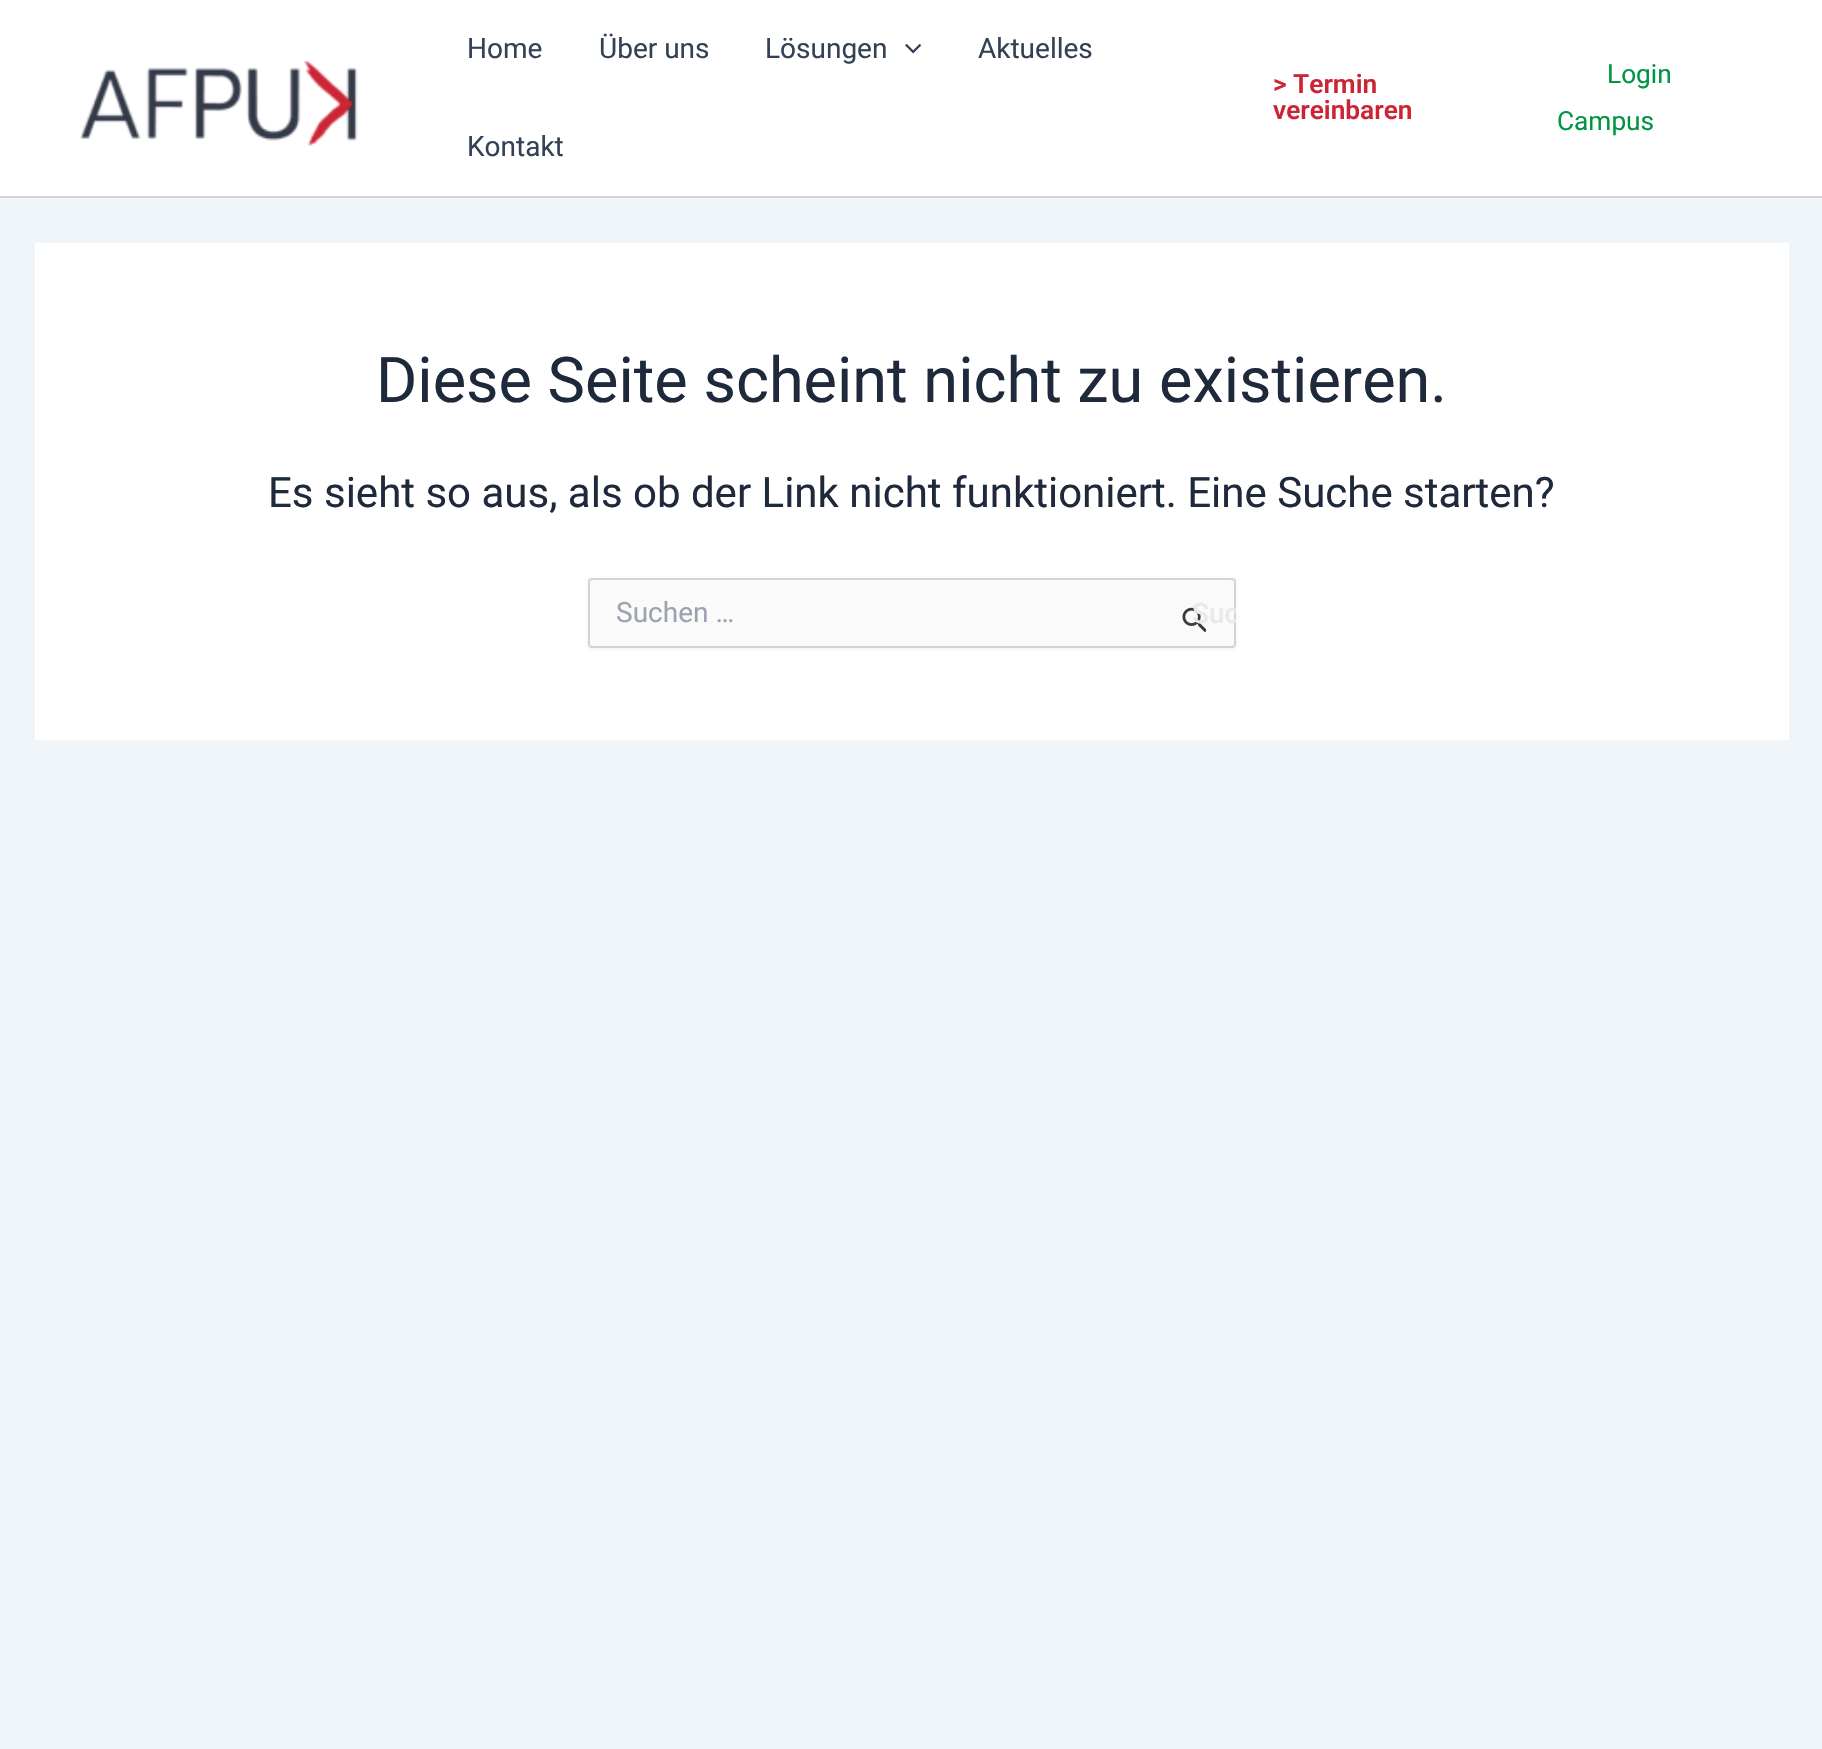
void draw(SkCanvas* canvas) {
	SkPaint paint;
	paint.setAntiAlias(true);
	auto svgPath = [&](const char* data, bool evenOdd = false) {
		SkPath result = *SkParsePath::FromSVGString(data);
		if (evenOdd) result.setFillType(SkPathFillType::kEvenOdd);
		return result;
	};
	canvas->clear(0xfff0f5fa);
	paint.setColor(0xffffffff);
	canvas->drawRect(SkRect::MakeXYWH(0, 0, 1822, 196), paint);
	paint.setColor(0xffd1d5db);
	canvas->drawRect(SkRect::MakeXYWH(0, 196, 1822, 2), paint);
	canvas->drawImageRect(SkImages::DeferredFromEncodedData(SkData::MakeFromFileName("img1.png")), SkRect::MakeXYWH(80, 60, 278, 86), SkSamplingOptions());
	SkFont f1(fontMgr->matchFamilyStyle("Roboto", SkFontStyle::Normal()), 28);
	f1.setSubpixel(true);
	paint.setColor(0xff334155);
	canvas->drawString("Home", 467, 58, f1, paint);
	canvas->drawString("Über uns", 599, 58, f1, paint);
	canvas->drawString("Lösungen", 765, 58, f1, paint);
	canvas->drawImageRect(SkImages::DeferredFromEncodedData(SkData::MakeFromFileName("img2.png")), SkRect::MakeXYWH(905, 43, 17, 11), SkSamplingOptions());
	canvas->drawString("Aktuelles", 978, 58, f1, paint);
	canvas->drawString("Kontakt", 467, 156, f1, paint);
	SkFont f2(fontMgr->matchFamilyStyle("Roboto", SkFontStyle(600, SkFontStyle::kNormal_Width, SkFontStyle::kUpright_Slant)), 26.25);
	f2.setSubpixel(true);
	paint.setColor(0xffcc2434);
	canvas->drawString("> Termin", 1273, 93, f2, paint);
	canvas->drawString("vereinbaren", 1273, 119, f2, paint);
	SkFont f3(fontMgr->matchFamilyStyle("Roboto", SkFontStyle::Normal()), 26.25);
	f3.setSubpixel(true);
	paint.setColor(0xff009444);
	canvas->drawString("Login", 1607, 83, f3, paint);
	canvas->drawString("Campus", 1557, 130, f3, paint);
	paint.setColor(0xffffffff);
	canvas->drawRect(SkRect::MakeXYWH(35, 243, 1754, 497), paint);
	SkFont f4(fontMgr->matchFamilyStyle("Roboto", SkFontStyle::Normal()), 63);
	f4.setSubpixel(true);
	paint.setColor(0xff1e293b);
	canvas->drawString("Diese Seite scheint nicht zu existieren.", 376, 402, f4, paint);
	SkFont f5(fontMgr->matchFamilyStyle("Roboto", SkFontStyle::Normal()), 42);
	f5.setSubpixel(true);
	canvas->drawString("Es sieht so aus, als ob der Link nicht funktioniert. Eine Suche starten?", 268, 507, f5, paint);
	paint.setColor(0x0d000000);
	paint.setMaskFilter(SkMaskFilter::MakeBlur(kNormal_SkBlurStyle, 2));
	canvas->drawRoundRect(SkRect::MakeXYWH(588, 579, 648, 70), 4, 4, paint);
	paint.setMaskFilter(nullptr);
	paint.setColor(0xfffafafa);
	canvas->drawRoundRect(SkRect::MakeXYWH(589, 579, 646, 68), 3, 3, paint);
	paint.setStroke(true);
	paint.setStrokeWidth(2);
	paint.setColor(0xffd1d5db);
	canvas->drawRoundRect(SkRect::MakeXYWH(589, 579, 646, 68), 3, 3, paint);
	paint.setStroke(false);
	paint.setColor(0xff9ca3af);
	canvas->drawString("Suchen …", 616, 622, f1, paint);
	canvas->drawImageRect(SkImages::DeferredFromEncodedData(SkData::MakeFromFileName("img3.png")), SkRect::MakeXYWH(1182, 607, 24, 26), SkSamplingOptions());
	canvas->save();
	canvas->clipPath(svgPath("M1161 578H1232C1234 578 1236 580 1236 582V647C1236 649 1234 651 1232 651H1161C1159 651 1157 649 1157 647V582C1157 580 1159 578 1161 578Z"), true);
	SkFont f6(fontMgr->matchFamilyStyle("Roboto", SkFontStyle(500, SkFontStyle::kNormal_Width, SkFontStyle::kUpright_Slant)), 28);
	f6.setSubpixel(true);
	paint.setColor(0xffe9e9e9);
	canvas->drawString("Suc", 1192, 623, f6, paint);
	canvas->restore();
}
